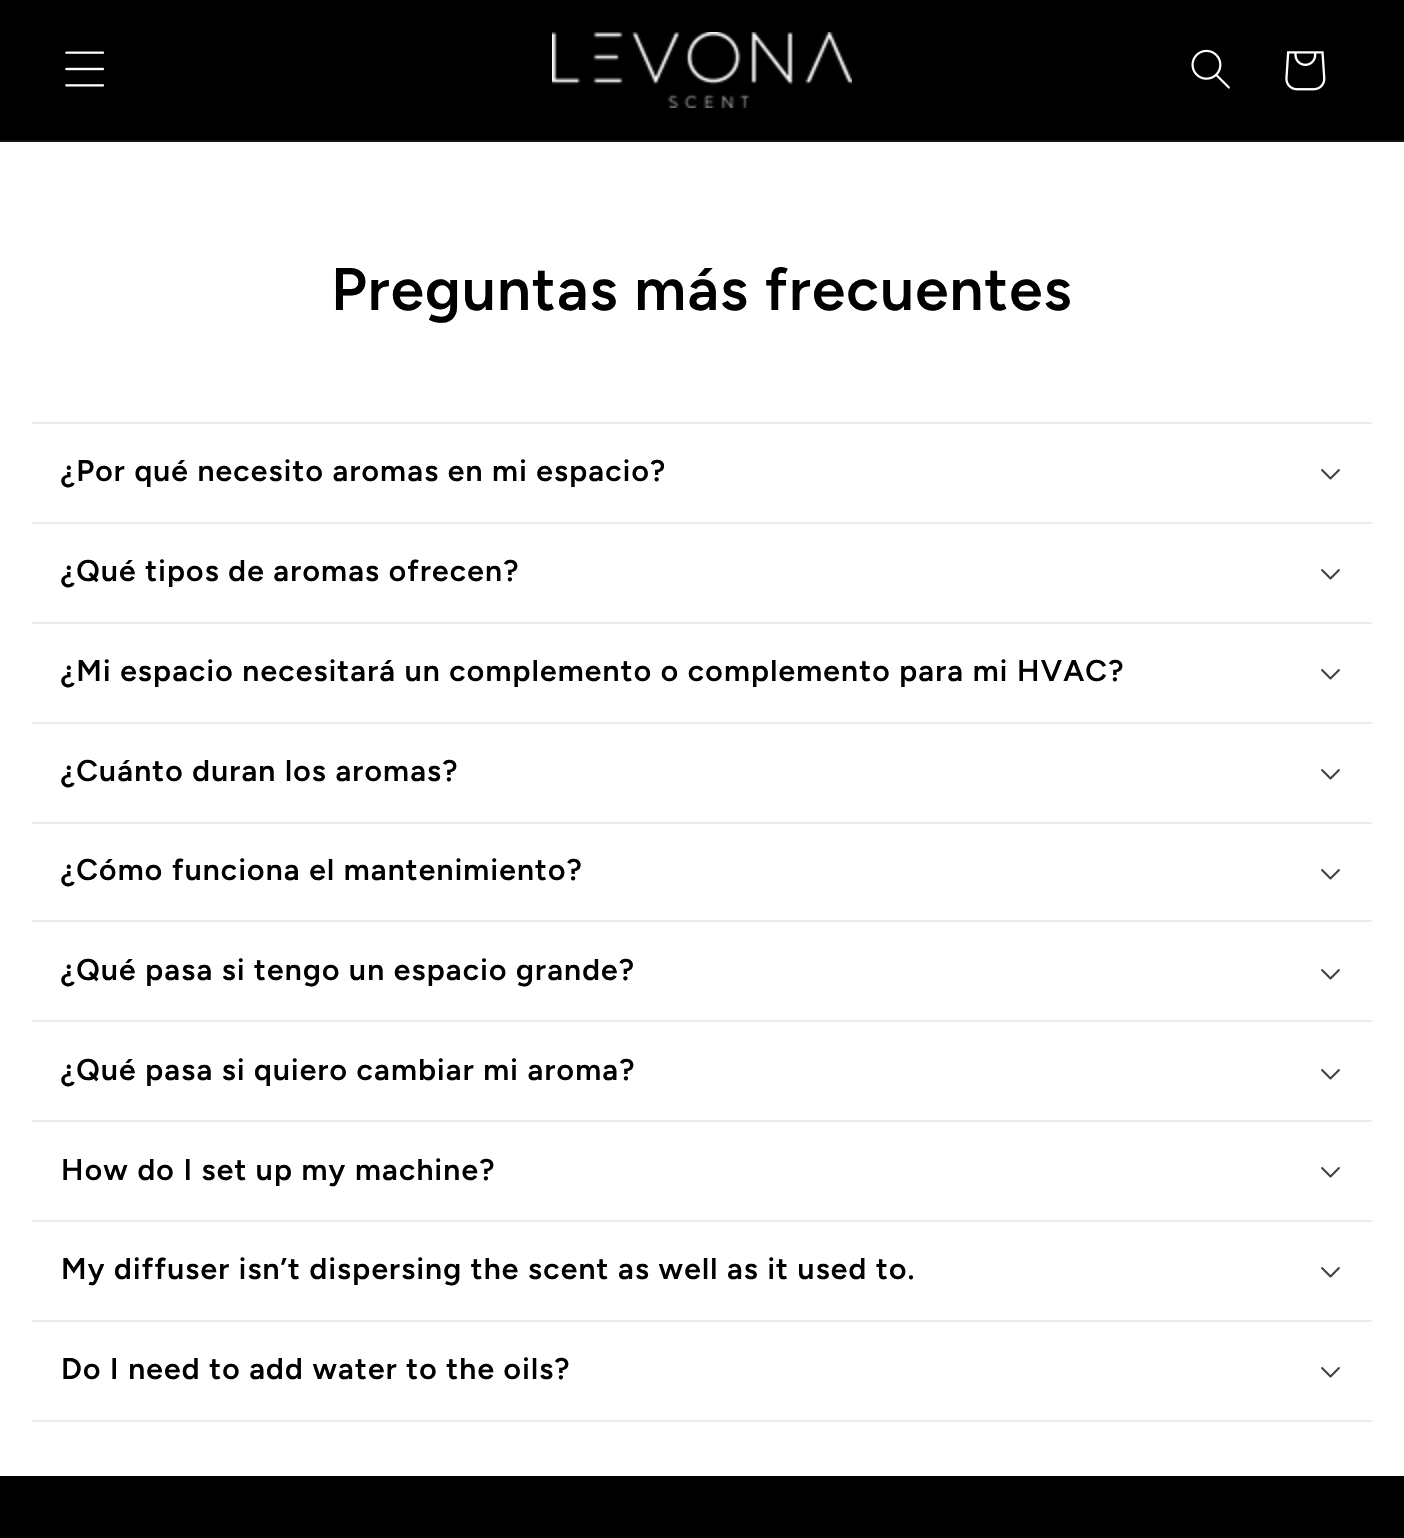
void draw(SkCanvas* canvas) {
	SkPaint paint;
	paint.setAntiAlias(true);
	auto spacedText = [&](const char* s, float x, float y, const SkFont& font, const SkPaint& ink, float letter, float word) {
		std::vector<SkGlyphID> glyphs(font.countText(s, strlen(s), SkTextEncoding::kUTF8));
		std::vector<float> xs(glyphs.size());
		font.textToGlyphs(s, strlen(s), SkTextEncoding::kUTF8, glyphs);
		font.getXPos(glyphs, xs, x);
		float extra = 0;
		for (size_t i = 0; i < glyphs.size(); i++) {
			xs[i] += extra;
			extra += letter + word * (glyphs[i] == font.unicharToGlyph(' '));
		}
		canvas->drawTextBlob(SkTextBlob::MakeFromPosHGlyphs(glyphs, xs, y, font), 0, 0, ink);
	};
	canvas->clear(0xffffffff);
	paint.setColor(0xff000000);
	canvas->drawRect(SkRect::MakeXYWH(0, 0, 1404, 140), paint);
	paint.setColor(0xff141414);
	canvas->drawRect(SkRect::MakeXYWH(0, 140, 1404, 2), paint);
	canvas->drawImageRect(SkImages::DeferredFromEncodedData(SkData::MakeFromFileName("img1.png")), SkRect::MakeXYWH(65, 51, 40, 36), SkSamplingOptions());
	canvas->drawImageRect(SkImages::DeferredFromEncodedData(SkData::MakeFromFileName("img2.png")), SkRect::MakeXYWH(552, 32, 300, 76), SkSamplingOptions());
	canvas->drawImageRect(SkImages::DeferredFromEncodedData(SkData::MakeFromFileName("img3.png")), SkRect::MakeXYWH(1191, 49, 39, 40), SkSamplingOptions());
	canvas->drawImageRect(SkImages::DeferredFromEncodedData(SkData::MakeFromFileName("img4.png")), SkRect::MakeXYWH(1285, 51, 41, 40), SkSamplingOptions());
	SkFont f1(fontMgr->matchFamilyStyle("Figtree", SkFontStyle(600, SkFontStyle::kNormal_Width, SkFontStyle::kUpright_Slant)), 60);
	f1.setSubpixel(true);
	paint.setColor(0xff000000);
	spacedText("Preguntas más frecuentes", 331, 310, f1, paint, 1.2, 0);
	paint.setColor(0xffebebeb);
	canvas->drawRect(SkRect::MakeXYWH(32, 422, 1340, 2), paint);
	canvas->drawRect(SkRect::MakeXYWH(32, 522, 1340, 2), paint);
	SkFont f2(fontMgr->matchFamilyStyle("Figtree", SkFontStyle(600, SkFontStyle::kNormal_Width, SkFontStyle::kUpright_Slant)), 30);
	f2.setSubpixel(true);
	paint.setColor(0xff000000);
	spacedText("¿Por qué necesito aromas en mi espacio?", 61, 481, f2, paint, 1.2, 0);
	canvas->drawImageRect(SkImages::DeferredFromEncodedData(SkData::MakeFromFileName("img5.png")), SkRect::MakeXYWH(1321, 469, 19, 11), SkSamplingOptions());
	paint.setColor(0xffebebeb);
	canvas->drawRect(SkRect::MakeXYWH(32, 622, 1340, 2), paint);
	paint.setColor(0xff000000);
	spacedText("¿Qué tipos de aromas ofrecen?", 61, 581, f2, paint, 1.2, 0);
	canvas->drawImageRect(SkImages::DeferredFromEncodedData(SkData::MakeFromFileName("img5.png")), SkRect::MakeXYWH(1321, 569, 19, 11), SkSamplingOptions());
	paint.setColor(0xffebebeb);
	canvas->drawRect(SkRect::MakeXYWH(32, 722, 1340, 2), paint);
	paint.setColor(0xff000000);
	spacedText("¿Mi espacio necesitará un complemento o complemento para mi HVAC?", 61, 681, f2, paint, 1.2, 0);
	canvas->drawImageRect(SkImages::DeferredFromEncodedData(SkData::MakeFromFileName("img5.png")), SkRect::MakeXYWH(1321, 669, 19, 11), SkSamplingOptions());
	paint.setColor(0xffebebeb);
	canvas->drawRect(SkRect::MakeXYWH(32, 822, 1340, 2), paint);
	paint.setColor(0xff000000);
	spacedText("¿Cuánto duran los aromas?", 61, 781, f2, paint, 1.2, 0);
	canvas->drawImageRect(SkImages::DeferredFromEncodedData(SkData::MakeFromFileName("img5.png")), SkRect::MakeXYWH(1321, 769, 19, 11), SkSamplingOptions());
	paint.setColor(0xffebebeb);
	canvas->drawRect(SkRect::MakeXYWH(32, 920, 1340, 2), paint);
	paint.setColor(0xff000000);
	spacedText("¿Cómo funciona el mantenimiento?", 61, 880, f2, paint, 1.2, 0);
	canvas->drawImageRect(SkImages::DeferredFromEncodedData(SkData::MakeFromFileName("img5.png")), SkRect::MakeXYWH(1321, 869, 19, 11), SkSamplingOptions());
	paint.setColor(0xffebebeb);
	canvas->drawRect(SkRect::MakeXYWH(32, 1020, 1340, 2), paint);
	paint.setColor(0xff000000);
	spacedText("¿Qué pasa si tengo un espacio grande?", 61, 980, f2, paint, 1.2, 0);
	canvas->drawImageRect(SkImages::DeferredFromEncodedData(SkData::MakeFromFileName("img5.png")), SkRect::MakeXYWH(1321, 969, 19, 11), SkSamplingOptions());
	paint.setColor(0xffebebeb);
	canvas->drawRect(SkRect::MakeXYWH(32, 1120, 1340, 2), paint);
	paint.setColor(0xff000000);
	spacedText("¿Qué pasa si quiero cambiar mi aroma?", 61, 1080, f2, paint, 1.2, 0);
	canvas->drawImageRect(SkImages::DeferredFromEncodedData(SkData::MakeFromFileName("img5.png")), SkRect::MakeXYWH(1321, 1069, 19, 11), SkSamplingOptions());
	paint.setColor(0xffebebeb);
	canvas->drawRect(SkRect::MakeXYWH(32, 1220, 1340, 2), paint);
	paint.setColor(0xff000000);
	spacedText("How do I set up my machine?", 61, 1180, f2, paint, 1.2, 0);
	canvas->drawImageRect(SkImages::DeferredFromEncodedData(SkData::MakeFromFileName("img5.png")), SkRect::MakeXYWH(1321, 1167, 19, 11), SkSamplingOptions());
	paint.setColor(0xffebebeb);
	canvas->drawRect(SkRect::MakeXYWH(32, 1320, 1340, 2), paint);
	paint.setColor(0xff000000);
	spacedText("My diffuser isn’t dispersing the scent as well as it used to.", 61, 1279, f2, paint, 1.2, 0);
	canvas->drawImageRect(SkImages::DeferredFromEncodedData(SkData::MakeFromFileName("img5.png")), SkRect::MakeXYWH(1321, 1267, 19, 11), SkSamplingOptions());
	paint.setColor(0xffebebeb);
	canvas->drawRect(SkRect::MakeXYWH(32, 1420, 1340, 2), paint);
	paint.setColor(0xff000000);
	spacedText("Do I need to add water to the oils?", 61, 1379, f2, paint, 1.2, 0);
	canvas->drawImageRect(SkImages::DeferredFromEncodedData(SkData::MakeFromFileName("img5.png")), SkRect::MakeXYWH(1321, 1367, 19, 11), SkSamplingOptions());
	canvas->drawRect(SkRect::MakeXYWH(0, 1476, 1404, 62), paint);
}
